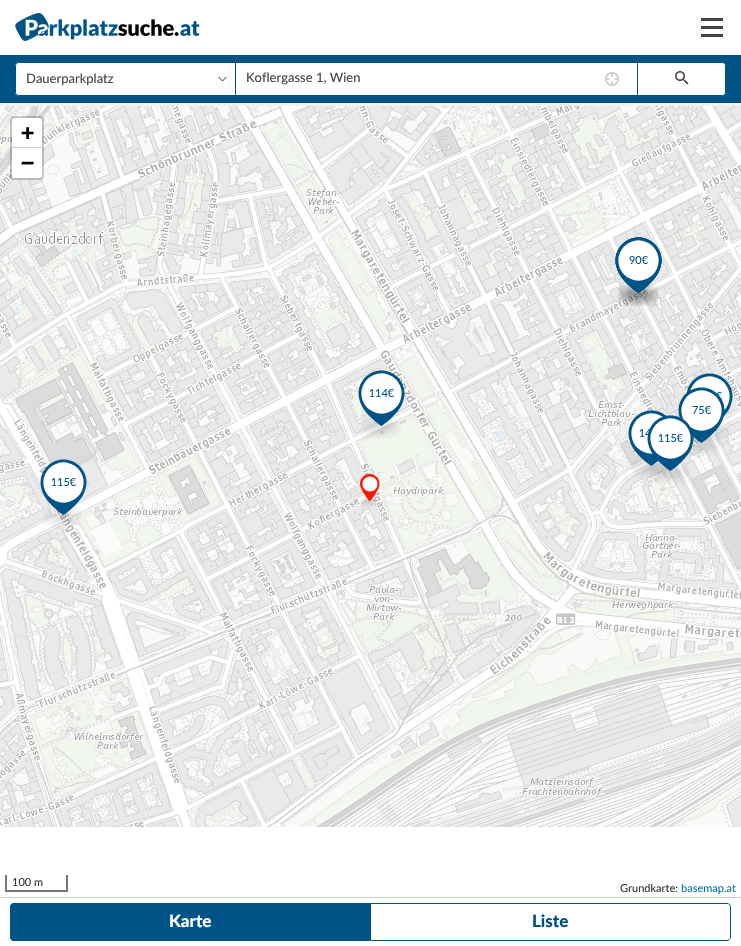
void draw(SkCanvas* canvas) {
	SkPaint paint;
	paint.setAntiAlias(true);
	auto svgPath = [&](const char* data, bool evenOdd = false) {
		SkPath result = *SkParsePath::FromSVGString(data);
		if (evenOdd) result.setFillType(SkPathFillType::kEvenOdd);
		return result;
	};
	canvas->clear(0xfff2f2f2);
	paint.setColor(0xffffffff);
	canvas->drawRect(SkRect::MakeXYWH(0, 0, 741, 55), paint);
	canvas->drawImageRect(SkImages::DeferredFromEncodedData(SkData::MakeFromFileName("img1.png")), SkRect::MakeXYWH(15, 13, 185, 28), SkSamplingOptions());
	paint.setColor(0xff444444);
	canvas->drawRect(SkRect::MakeXYWH(701, 18, 22, 3), paint);
	canvas->drawRect(SkRect::MakeXYWH(701, 26, 22, 3), paint);
	canvas->drawRect(SkRect::MakeXYWH(701, 34, 22, 3), paint);
	paint.setColor(0xff005387);
	canvas->drawRect(SkRect::MakeXYWH(0, 55, 741, 48), paint);
	paint.setColor(0xffffffff);
	canvas->drawPath(svgPath("M19 62H235V96H19C17 96 15 94 15 92V66C15 64 17 62 19 62Z"), paint);
	paint.setColor(0xff005387);
	canvas->drawPath(svgPath("M19 62H235V96H19C17 96 15 94 15 92V66C15 64 17 62 19 62ZM19 63H235V95H19C17 95 16 94 16 92V66C16 64 17 63 19 63Z", true), paint);
	SkFont f1(fontMgr->matchFamilyStyle("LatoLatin", SkFontStyle::Normal()), 13);
	f1.setSubpixel(true);
	paint.setColor(0xff444444);
	canvas->drawString("Dauerparkplatz", 26, 83, f1, paint);
	canvas->drawImageRect(SkImages::DeferredFromEncodedData(SkData::MakeFromFileName("img2.png")), SkRect::MakeXYWH(218, 77, 9, 5), SkSamplingOptions());
	paint.setColor(0xffffffff);
	canvas->drawRect(SkRect::MakeXYWH(236, 63, 401, 32), paint);
	paint.setColor(0xff444444);
	canvas->drawString("Koflergasse 1, Wien", 246, 82, f1, paint);
	canvas->drawImageRect(SkImages::DeferredFromEncodedData(SkData::MakeFromFileName("img3.png")), SkRect::MakeXYWH(605, 72, 14, 14), SkSamplingOptions());
	paint.setColor(0xffffffff);
	canvas->drawPath(svgPath("M638 62H722C724 62 726 64 726 66V92C726 94 724 96 722 96H638Z"), paint);
	paint.setColor(0xff005387);
	canvas->drawPath(svgPath("M638 62H722C724 62 726 64 726 66V92C726 94 724 96 722 96H638ZM638 63H722C724 63 725 64 725 66V92C725 94 724 95 722 95H638Z", true), paint);
	canvas->drawImageRect(SkImages::DeferredFromEncodedData(SkData::MakeFromFileName("img4.png")), SkRect::MakeXYWH(675, 71, 14, 14), SkSamplingOptions());
	paint.setColor(0xffffffff);
	canvas->drawRect(SkRect::MakeXYWH(0, 106, 741, 791), paint);
	canvas->drawImageRect(SkImages::DeferredFromEncodedData(SkData::MakeFromFileName("img5.png")), SkRect::MakeXYWH(0, 106, 230, 209), SkSamplingOptions());
	canvas->drawImageRect(SkImages::DeferredFromEncodedData(SkData::MakeFromFileName("img6.png")), SkRect::MakeXYWH(230, 106, 256, 209), SkSamplingOptions());
	canvas->drawImageRect(SkImages::DeferredFromEncodedData(SkData::MakeFromFileName("img7.png")), SkRect::MakeXYWH(486, 106, 255, 209), SkSamplingOptions());
	canvas->drawImageRect(SkImages::DeferredFromEncodedData(SkData::MakeFromFileName("img8.png")), SkRect::MakeXYWH(0, 315, 230, 256), SkSamplingOptions());
	canvas->drawImageRect(SkImages::DeferredFromEncodedData(SkData::MakeFromFileName("img9.png")), SkRect::MakeXYWH(230, 315, 256, 256), SkSamplingOptions());
	canvas->drawImageRect(SkImages::DeferredFromEncodedData(SkData::MakeFromFileName("img10.png")), SkRect::MakeXYWH(486, 315, 255, 256), SkSamplingOptions());
	canvas->drawImageRect(SkImages::DeferredFromEncodedData(SkData::MakeFromFileName("img11.png")), SkRect::MakeXYWH(0, 571, 230, 256), SkSamplingOptions());
	canvas->drawImageRect(SkImages::DeferredFromEncodedData(SkData::MakeFromFileName("img12.png")), SkRect::MakeXYWH(230, 571, 256, 256), SkSamplingOptions());
	canvas->drawImageRect(SkImages::DeferredFromEncodedData(SkData::MakeFromFileName("img13.png")), SkRect::MakeXYWH(486, 571, 255, 256), SkSamplingOptions());
	canvas->drawImageRect(SkImages::DeferredFromEncodedData(SkData::MakeFromFileName("img14.png")), SkRect::MakeXYWH(436, 106, 30, 4), SkSamplingOptions());
	canvas->drawImageRect(SkImages::DeferredFromEncodedData(SkData::MakeFromFileName("img15.png")), SkRect::MakeXYWH(618, 285, 40, 21), SkSamplingOptions());
	canvas->drawImageRect(SkImages::DeferredFromEncodedData(SkData::MakeFromFileName("img16.png")), SkRect::MakeXYWH(618, 285, 40, 21), SkSamplingOptions());
	canvas->drawImageRect(SkImages::DeferredFromEncodedData(SkData::MakeFromFileName("img17.png")), SkRect::MakeXYWH(618, 285, 40, 21), SkSamplingOptions());
	canvas->drawImageRect(SkImages::DeferredFromEncodedData(SkData::MakeFromFileName("img18.png")), SkRect::MakeXYWH(618, 285, 40, 21), SkSamplingOptions());
	canvas->drawImageRect(SkImages::DeferredFromEncodedData(SkData::MakeFromFileName("img19.png")), SkRect::MakeXYWH(361, 418, 40, 21), SkSamplingOptions());
	canvas->drawImageRect(SkImages::DeferredFromEncodedData(SkData::MakeFromFileName("img21.png")), SkRect::MakeXYWH(688, 435, 33, 21), SkSamplingOptions());
	canvas->drawImageRect(SkImages::DeferredFromEncodedData(SkData::MakeFromFileName("img20.png")), SkRect::MakeXYWH(693, 422, 36, 20), SkSamplingOptions());
	canvas->drawImageRect(SkImages::DeferredFromEncodedData(SkData::MakeFromFileName("img22.png")), SkRect::MakeXYWH(631, 458, 39, 21), SkSamplingOptions());
	canvas->drawImageRect(SkImages::DeferredFromEncodedData(SkData::MakeFromFileName("img23.png")), SkRect::MakeXYWH(650, 463, 40, 21), SkSamplingOptions());
	canvas->drawImageRect(SkImages::DeferredFromEncodedData(SkData::MakeFromFileName("img24.png")), SkRect::MakeXYWH(361, 498, 17, 9), SkSamplingOptions());
	canvas->drawImageRect(SkImages::DeferredFromEncodedData(SkData::MakeFromFileName("img25.png")), SkRect::MakeXYWH(43, 507, 40, 21), SkSamplingOptions());
	canvas->drawImageRect(SkImages::DeferredFromEncodedData(SkData::MakeFromFileName("img26.png")), SkRect::MakeXYWH(615, 237, 47, 56), SkSamplingOptions());
	canvas->drawImageRect(SkImages::DeferredFromEncodedData(SkData::MakeFromFileName("img27.png")), SkRect::MakeXYWH(615, 237, 47, 56), SkSamplingOptions());
	canvas->drawImageRect(SkImages::DeferredFromEncodedData(SkData::MakeFromFileName("img28.png")), SkRect::MakeXYWH(615, 237, 47, 56), SkSamplingOptions());
	canvas->drawImageRect(SkImages::DeferredFromEncodedData(SkData::MakeFromFileName("img29.png")), SkRect::MakeXYWH(615, 237, 47, 56), SkSamplingOptions());
	canvas->drawImageRect(SkImages::DeferredFromEncodedData(SkData::MakeFromFileName("img30.png")), SkRect::MakeXYWH(358, 370, 47, 56), SkSamplingOptions());
	canvas->drawImageRect(SkImages::DeferredFromEncodedData(SkData::MakeFromFileName("img31.png")), SkRect::MakeXYWH(686, 373, 47, 46), SkSamplingOptions());
	canvas->drawImageRect(SkImages::DeferredFromEncodedData(SkData::MakeFromFileName("img32.png")), SkRect::MakeXYWH(628, 410, 39, 56), SkSamplingOptions());
	canvas->drawImageRect(SkImages::DeferredFromEncodedData(SkData::MakeFromFileName("img33.png")), SkRect::MakeXYWH(678, 387, 47, 56), SkSamplingOptions());
	canvas->drawImageRect(SkImages::DeferredFromEncodedData(SkData::MakeFromFileName("img34.png")), SkRect::MakeXYWH(647, 415, 47, 56), SkSamplingOptions());
	canvas->drawImageRect(SkImages::DeferredFromEncodedData(SkData::MakeFromFileName("img35.png")), SkRect::MakeXYWH(40, 459, 47, 56), SkSamplingOptions());
	canvas->drawImageRect(SkImages::DeferredFromEncodedData(SkData::MakeFromFileName("img36.png")), SkRect::MakeXYWH(360, 474, 20, 28), SkSamplingOptions());
	paint.setStroke(true);
	paint.setStrokeWidth(2);
	paint.setColor(0x33000000);
	canvas->drawRoundRect(SkRect::MakeXYWH(11, 117, 32, 62), 3, 3, paint);
	paint.setStroke(false);
	paint.setColor(0xffffffff);
	canvas->drawPath(svgPath("M14 118H40C41 118 42 119 42 120V148H12V120C12 119 13 118 14 118Z"), paint);
	paint.setColor(0xffcccccc);
	canvas->drawRect(SkRect::MakeXYWH(12, 147, 30, 1), paint);
	SkFont f2(fontMgr->matchFamilyStyle("DejaVu Sans Mono", SkFontStyle::Bold()), 22);
	f2.setSubpixel(true);
	paint.setColor(0xff000000);
	canvas->drawString("+", 21, 140, f2, paint);
	paint.setColor(0xffffffff);
	canvas->drawPath(svgPath("M12 148H42V176C42 177 41 178 40 178H14C13 178 12 177 12 176Z"), paint);
	paint.setColor(0xff000000);
	canvas->drawString("−", 21, 170, f2, paint);
	paint.setColor(0xff777777);
	canvas->drawRect(SkRect::MakeXYWH(66, 875, 2, 17), paint);
	canvas->drawRect(SkRect::MakeXYWH(5, 890, 63, 2), paint);
	canvas->drawRect(SkRect::MakeXYWH(5, 875, 2, 17), paint);
	SkFont f3(fontMgr->matchFamilyStyle("LatoLatin", SkFontStyle::Normal()), 11);
	f3.setSubpixel(true);
	paint.setColor(0xff333333);
	canvas->drawString("100 m", 12, 886, f3, paint);
	canvas->drawString("Grundkarte:", 620, 892, f3, paint);
	paint.setColor(0xff0078a8);
	canvas->drawString("basemap.at", 681, 892, f3, paint);
	paint.setColor(0xffffffff);
	canvas->drawRect(SkRect::MakeXYWH(0, 898, 741, 48), paint);
	paint.setColor(0xffcccccc);
	canvas->drawRect(SkRect::MakeXYWH(0, 897, 741, 1), paint);
	paint.setColor(0xff005387);
	canvas->drawPath(svgPath("M14 903H370V941H14C12 941 10 939 10 937V907C10 905 12 903 14 903Z"), paint);
	canvas->drawPath(svgPath("M14 903H370V941H14C12 941 10 939 10 937V907C10 905 12 903 14 903ZM14 904H370V940H14C12 940 11 939 11 937V907C11 905 12 904 14 904Z", true), paint);
	SkFont f4(fontMgr->matchFamilyStyle("LatoLatin", SkFontStyle(900, SkFontStyle::kNormal_Width, SkFontStyle::kUpright_Slant)), 17);
	f4.setSubpixel(true);
	paint.setColor(0xffffffff);
	canvas->drawString("Karte", 169, 927, f4, paint);
	paint.setStroke(true);
	paint.setStrokeWidth(1);
	paint.setColor(0xff005387);
	canvas->drawPath(svgPath("M370.5 903.5H727C729 903.5 730.5 905 730.5 907V937C730.5 939 729 940.5 727 940.5H370.5Z"), paint);
	paint.setStroke(false);
	canvas->drawString("Liste", 532, 927, f4, paint);
}
